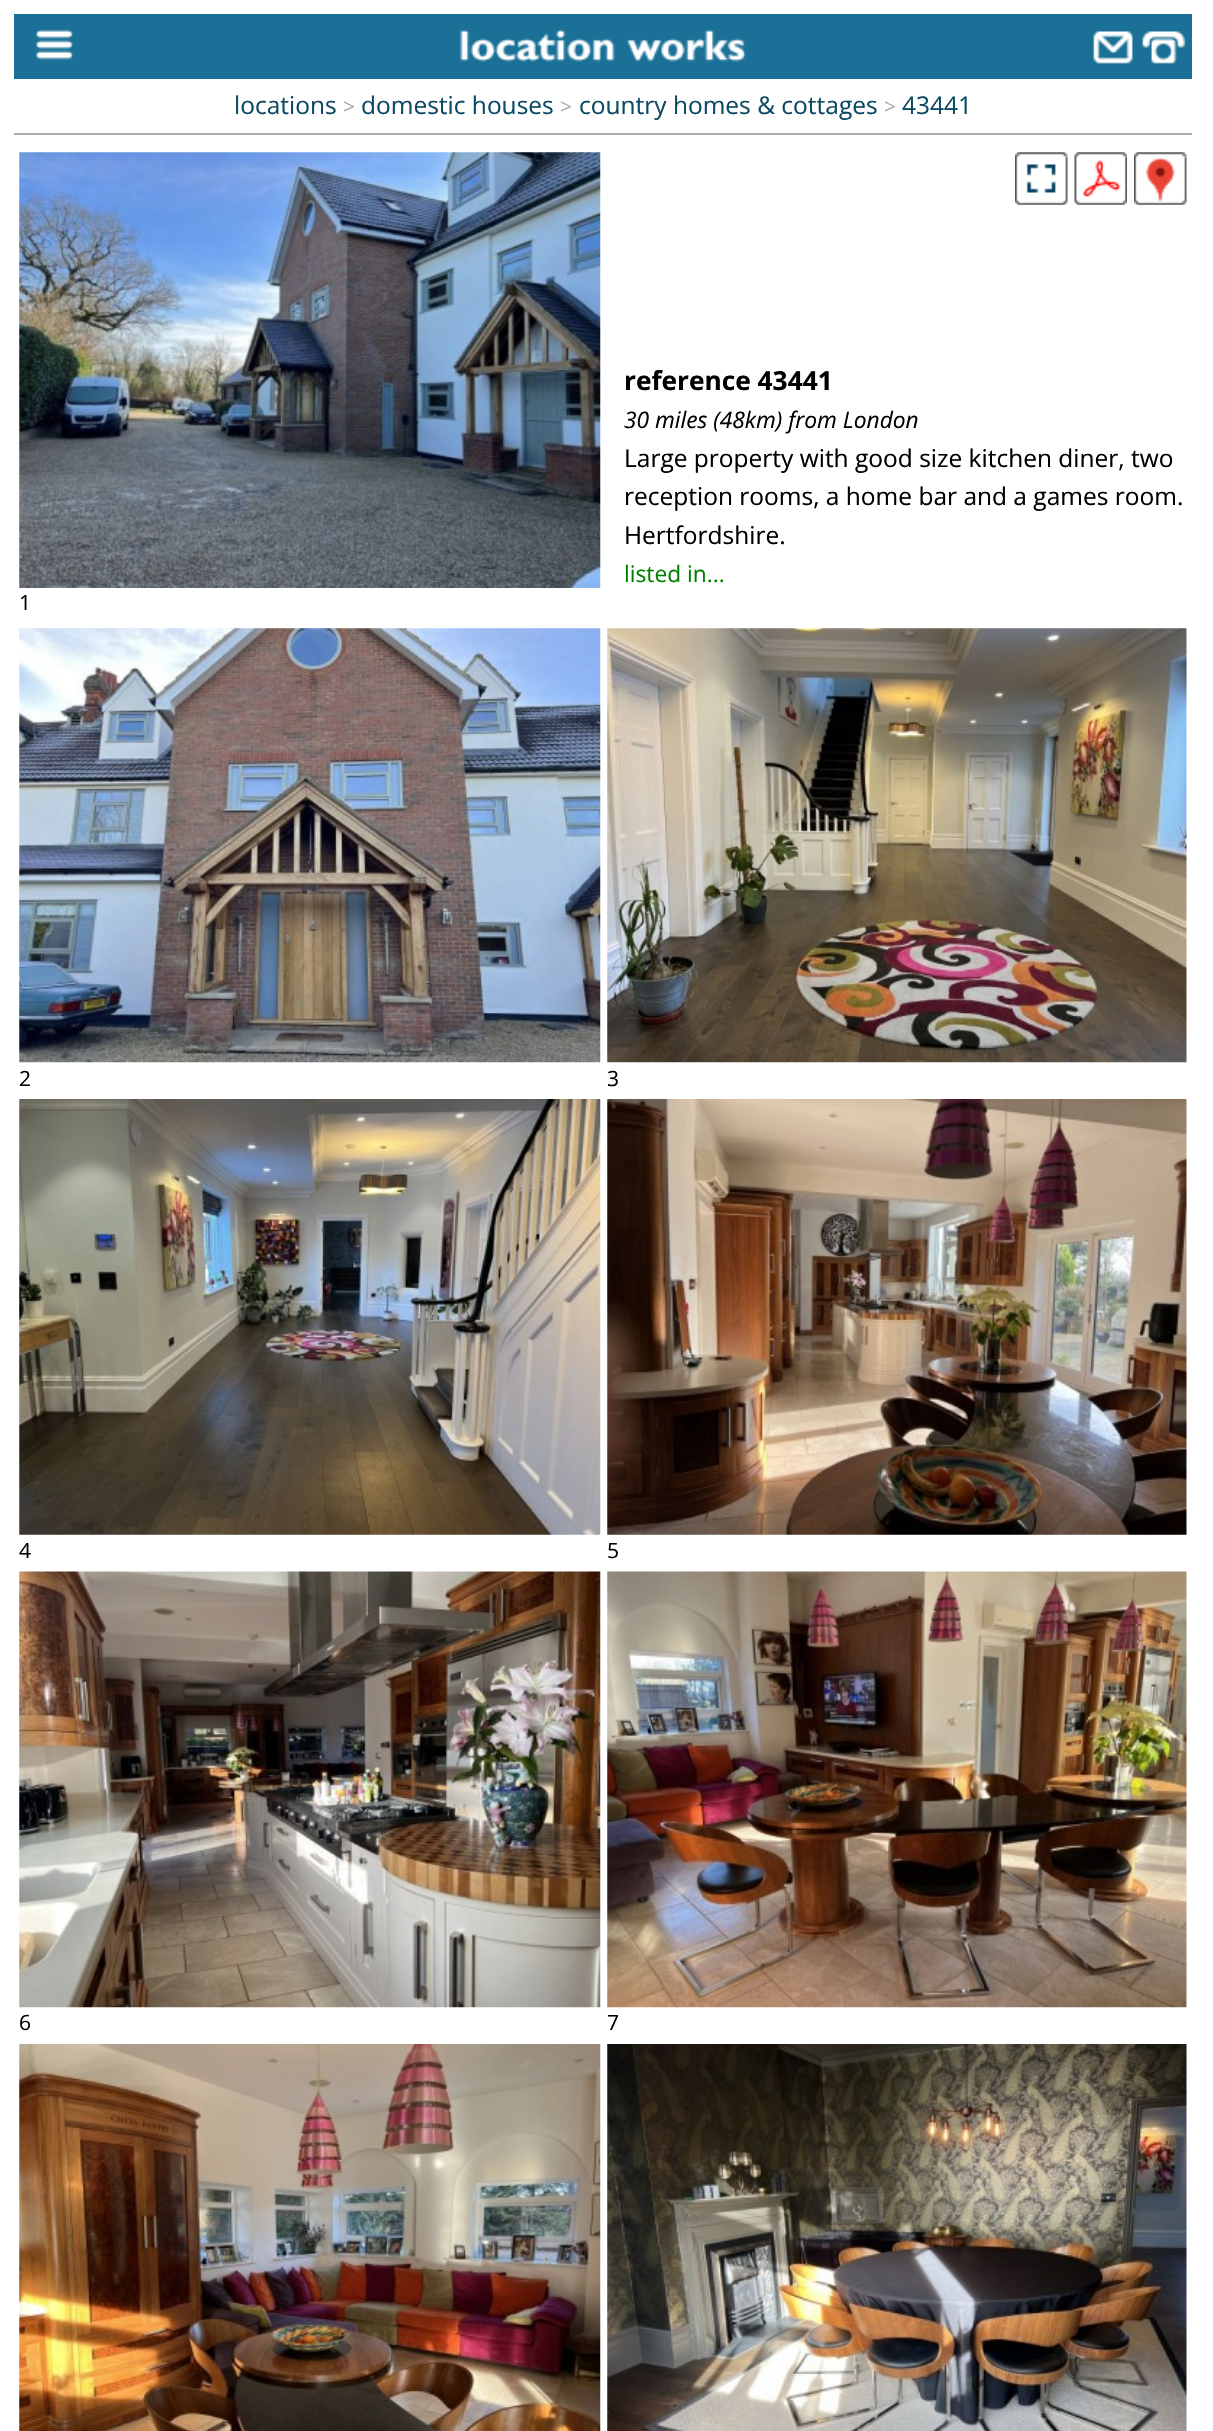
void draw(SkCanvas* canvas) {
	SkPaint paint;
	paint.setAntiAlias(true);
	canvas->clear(0xffffffff);
	paint.setColor(0xff1b7097);
	canvas->drawRect(SkRect::MakeXYWH(14, 14, 1178, 65), paint);
	canvas->drawImageRect(SkImages::DeferredFromEncodedData(SkData::MakeFromFileName("img1.png")), SkRect::MakeXYWH(35, 29, 39, 31), SkSamplingOptions());
	canvas->drawImageRect(SkImages::DeferredFromEncodedData(SkData::MakeFromFileName("img2.png")), SkRect::MakeXYWH(459, 29, 287, 33), SkSamplingOptions());
	canvas->drawImageRect(SkImages::DeferredFromEncodedData(SkData::MakeFromFileName("img3.png")), SkRect::MakeXYWH(1093, 31, 40, 33), SkSamplingOptions());
	canvas->drawImageRect(SkImages::DeferredFromEncodedData(SkData::MakeFromFileName("img4.png")), SkRect::MakeXYWH(1142, 31, 44, 33), SkSamplingOptions());
	SkFont f1(fontMgr->matchFamilyStyle("Open Sans", SkFontStyle::Normal()), 24.5);
	f1.setSubpixel(true);
	paint.setColor(0xff0c4964);
	canvas->drawString("locations", 234, 114, f1, paint);
	SkFont f2(fontMgr->matchFamilyStyle("Open Sans", SkFontStyle::Normal()), 21);
	f2.setSubpixel(true);
	paint.setColor(0xffaaaaaa);
	canvas->drawString(">", 343, 114, f2, paint);
	paint.setColor(0xff0c4964);
	canvas->drawString("domestic houses", 361, 114, f1, paint);
	paint.setColor(0xffaaaaaa);
	canvas->drawString(">", 560, 114, f2, paint);
	paint.setColor(0xff0c4964);
	canvas->drawString("country homes & cottages", 579, 114, f1, paint);
	paint.setColor(0xffaaaaaa);
	canvas->drawString(">", 884, 114, f2, paint);
	paint.setColor(0xff0c4964);
	canvas->drawString("43441", 902, 114, f1, paint);
	paint.setColor(0xffaaaaaa);
	canvas->drawRect(SkRect::MakeXYWH(14, 133, 1178, 2), paint);
	SkFont f3(fontMgr->matchFamilyStyle("Open Sans", SkFontStyle::Bold()), 26.25);
	f3.setSubpixel(true);
	paint.setColor(0xff000000);
	canvas->drawString("reference 43441", 624, 390, f3, paint);
	SkFont f4(fontMgr->matchFamilyStyle("Open Sans", SkFontStyle::Italic()), 22.75);
	f4.setSubpixel(true);
	canvas->drawString("30 miles (48km) from London", 624, 428, f4, paint);
	canvas->drawString("Large property with good size kitchen diner, two", 624, 467, f1, paint);
	canvas->drawString("reception rooms, a home bar and a games room.", 624, 505, f1, paint);
	canvas->drawString("Hertfordshire.", 624, 544, f1, paint);
	SkFont f5(fontMgr->matchFamilyStyle("Open Sans", SkFontStyle::Normal()), 22.75);
	f5.setSubpixel(true);
	paint.setColor(0xff008000);
	canvas->drawString("listed in...", 624, 582, f5, paint);
	canvas->drawImageRect(SkImages::DeferredFromEncodedData(SkData::MakeFromFileName("img5.png")), SkRect::MakeXYWH(1015, 152, 53, 53), SkSamplingOptions());
	canvas->drawImageRect(SkImages::DeferredFromEncodedData(SkData::MakeFromFileName("img6.png")), SkRect::MakeXYWH(1074, 152, 53, 53), SkSamplingOptions());
	canvas->drawImageRect(SkImages::DeferredFromEncodedData(SkData::MakeFromFileName("img7.png")), SkRect::MakeXYWH(1134, 152, 53, 53), SkSamplingOptions());
	canvas->drawImageRect(SkImages::DeferredFromEncodedData(SkData::MakeFromFileName("img8.png")), SkRect::MakeXYWH(19, 152, 582, 436), SkSamplingOptions());
	paint.setColor(0xff000000);
	canvas->drawString("1", 19, 610, f2, paint);
	canvas->drawImageRect(SkImages::DeferredFromEncodedData(SkData::MakeFromFileName("img9.png")), SkRect::MakeXYWH(19, 628, 582, 435), SkSamplingOptions());
	canvas->drawString("2", 19, 1086, f2, paint);
	canvas->drawImageRect(SkImages::DeferredFromEncodedData(SkData::MakeFromFileName("img10.png")), SkRect::MakeXYWH(607, 628, 580, 435), SkSamplingOptions());
	canvas->drawString("3", 607, 1086, f2, paint);
	canvas->drawImageRect(SkImages::DeferredFromEncodedData(SkData::MakeFromFileName("img11.png")), SkRect::MakeXYWH(19, 1099, 582, 436), SkSamplingOptions());
	canvas->drawString("4", 19, 1558, f2, paint);
	canvas->drawImageRect(SkImages::DeferredFromEncodedData(SkData::MakeFromFileName("img12.png")), SkRect::MakeXYWH(607, 1099, 580, 436), SkSamplingOptions());
	canvas->drawString("5", 607, 1558, f2, paint);
	canvas->drawImageRect(SkImages::DeferredFromEncodedData(SkData::MakeFromFileName("img13.png")), SkRect::MakeXYWH(19, 1571, 582, 437), SkSamplingOptions());
	canvas->drawString("6", 19, 2030, f2, paint);
	canvas->drawImageRect(SkImages::DeferredFromEncodedData(SkData::MakeFromFileName("img14.png")), SkRect::MakeXYWH(607, 1571, 580, 437), SkSamplingOptions());
	canvas->drawString("7", 607, 2030, f2, paint);
	canvas->drawImageRect(SkImages::DeferredFromEncodedData(SkData::MakeFromFileName("img15.png")), SkRect::MakeXYWH(19, 2044, 582, 387), SkSamplingOptions());
	canvas->drawImageRect(SkImages::DeferredFromEncodedData(SkData::MakeFromFileName("img16.png")), SkRect::MakeXYWH(607, 2044, 580, 387), SkSamplingOptions());
}
